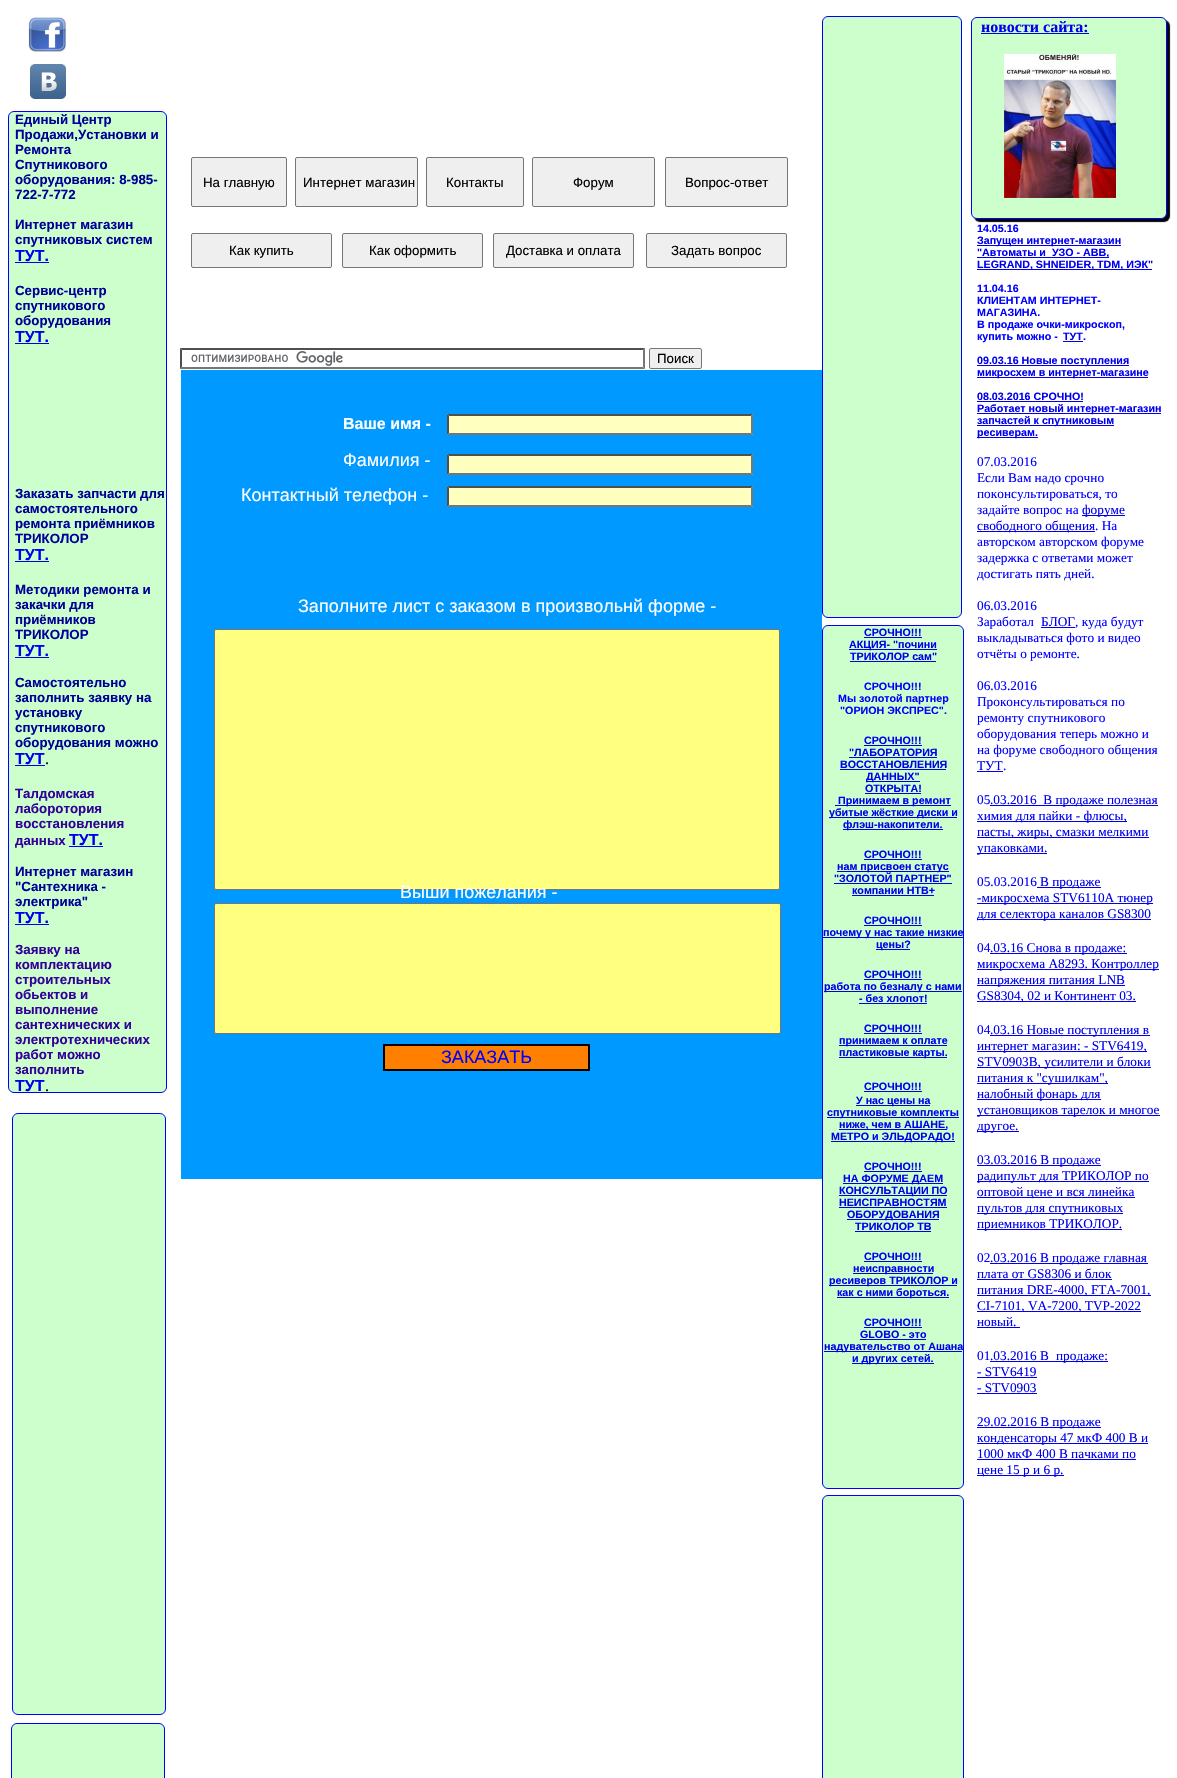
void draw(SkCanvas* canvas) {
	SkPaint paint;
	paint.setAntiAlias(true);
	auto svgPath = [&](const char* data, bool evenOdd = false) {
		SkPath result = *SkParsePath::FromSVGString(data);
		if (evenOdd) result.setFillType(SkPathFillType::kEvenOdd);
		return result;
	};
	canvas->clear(0xffffffff);
	canvas->drawImageRect(SkImages::DeferredFromEncodedData(SkData::MakeFromFileName("img1.png")), SkRect::MakeXYWH(28, 17, 38, 35), SkSamplingOptions());
	paint.setColor(0xffccffcc);
	canvas->drawRoundRect(SkRect::MakeXYWH(822.5, 16.5, 139, 601), 5.5, 5.5, paint);
	paint.setStroke(true);
	paint.setStrokeWidth(1);
	paint.setColor(0xff0000ff);
	canvas->drawRoundRect(SkRect::MakeXYWH(822.5, 16.5, 139, 601), 5.5, 5.5, paint);
	paint.setStroke(false);
	paint.setColor(0xff000000);
	paint.setMaskFilter(SkMaskFilter::MakeBlur(kNormal_SkBlurStyle, 0.5));
	canvas->drawRoundRect(SkRect::MakeXYWH(974, 20, 196, 202), 6, 6, paint);
	paint.setMaskFilter(nullptr);
	paint.setColor(0xffccffcc);
	canvas->drawRoundRect(SkRect::MakeXYWH(971.5, 17.5, 195, 201), 5.5, 5.5, paint);
	paint.setStroke(true);
	paint.setColor(0xff0000ff);
	canvas->drawRoundRect(SkRect::MakeXYWH(971.5, 17.5, 195, 201), 5.5, 5.5, paint);
	SkFont f1(fontMgr->matchFamilyStyle("Liberation Serif", SkFontStyle::Bold()), 16);
	f1.setSubpixel(true);
	paint.setStroke(false);
	paint.setColor(0xff0000ee);
	canvas->drawString("новости сайта:", 981, 32, f1, paint);
	canvas->drawRect(SkRect::MakeXYWH(981, 33, 108, 1), paint);
	canvas->drawImageRect(SkImages::DeferredFromEncodedData(SkData::MakeFromFileName("img2.png")), SkRect::MakeXYWH(1004, 54, 112, 144), SkSamplingOptions());
	SkFont f2(fontMgr->matchFamilyStyle("Liberation Sans", SkFontStyle::Bold()), 10.7);
	f2.setSubpixel(true);
	paint.setColor(0xff0000ff);
	canvas->drawString("14.05.16", 977, 232, f2, paint);
	paint.setColor(0xff0000ee);
	canvas->drawRect(SkRect::MakeXYWH(977, 245, 144, 1), paint);
	canvas->drawString("Запущен интернет-магазин", 977, 244, f2, paint);
	canvas->drawRect(SkRect::MakeXYWH(977, 257, 132, 1), paint);
	canvas->drawString("\"Автоматы и  УЗО - ABB,", 977, 256, f2, paint);
	canvas->drawRect(SkRect::MakeXYWH(977, 269, 175, 1), paint);
	canvas->drawString("LEGRAND, SHNEIDER, TDM, ИЭК\"", 977, 268, f2, paint);
	paint.setColor(0xff0000ff);
	canvas->drawString("11.04.16", 977, 292, f2, paint);
	canvas->drawString("КЛИЕНТАМ ИНТЕРНЕТ-", 977, 304, f2, paint);
	canvas->drawString("МАГАЗИНА.", 977, 316, f2, paint);
	canvas->drawString("В продаже очки-микроскоп,", 977, 328, f2, paint);
	canvas->drawString("купить можно -", 977, 340, f2, paint);
	paint.setColor(0xff0000ee);
	canvas->drawString("ТУТ", 1063, 340, f2, paint);
	paint.setColor(0xff0000ff);
	canvas->drawString(".", 1083, 340, f2, paint);
	paint.setColor(0xff0000ee);
	canvas->drawRect(SkRect::MakeXYWH(1063, 341, 20, 1), paint);
	canvas->drawRect(SkRect::MakeXYWH(977, 365, 152, 1), paint);
	canvas->drawString("09.03.16 Новые поступления", 977, 364, f2, paint);
	canvas->drawRect(SkRect::MakeXYWH(977, 377, 171, 1), paint);
	canvas->drawString("микросхем в интернет-магазине", 977, 376, f2, paint);
	canvas->drawString("08.03.2016 СРОЧНО!", 977, 400, f2, paint);
	canvas->drawRect(SkRect::MakeXYWH(977, 401, 106, 1), paint);
	canvas->drawRect(SkRect::MakeXYWH(977, 413, 184, 1), paint);
	canvas->drawString("Работает новый интернет-магазин", 977, 412, f2, paint);
	canvas->drawRect(SkRect::MakeXYWH(977, 425, 137, 1), paint);
	canvas->drawString("запчастей к спутниковым", 977, 424, f2, paint);
	canvas->drawRect(SkRect::MakeXYWH(977, 437, 61, 1), paint);
	canvas->drawString("ресиверам.", 977, 436, f2, paint);
	SkFont f3(fontMgr->matchFamilyStyle("Liberation Serif", SkFontStyle::Normal()), 13.3);
	f3.setSubpixel(true);
	paint.setColor(0xff0000ff);
	canvas->drawString("07.03.2016", 977, 466, f3, paint);
	canvas->drawString("Если Вам надо срочно", 977, 482, f3, paint);
	canvas->drawString("поконсультироваться, то", 977, 498, f3, paint);
	canvas->drawString("задайте вопрос на", 977, 514, f3, paint);
	paint.setColor(0xff0000ee);
	canvas->drawRect(SkRect::MakeXYWH(1082, 515, 43, 1), paint);
	canvas->drawString("форуме", 1082, 514, f3, paint);
	canvas->drawRect(SkRect::MakeXYWH(977, 531, 118, 1), paint);
	canvas->drawString("свободного общения", 977, 530, f3, paint);
	paint.setColor(0xff0000ff);
	canvas->drawString(". На", 1095, 530, f3, paint);
	canvas->drawString("авторском авторском форуме", 977, 546, f3, paint);
	canvas->drawString("задержка с ответами может", 977, 562, f3, paint);
	canvas->drawString("достигать пять дней.", 977, 578, f3, paint);
	canvas->drawString("06.03.2016", 977, 610, f3, paint);
	canvas->drawString("Заработал", 977, 626, f3, paint);
	paint.setColor(0xff0000ee);
	canvas->drawString("БЛОГ", 1041, 626, f3, paint);
	paint.setColor(0xff0000ff);
	canvas->drawString(", куда будут", 1075, 626, f3, paint);
	paint.setColor(0xff0000ee);
	canvas->drawRect(SkRect::MakeXYWH(1041, 627, 34, 1), paint);
	paint.setColor(0xff0000ff);
	canvas->drawString("выкладываться фото и видео", 977, 642, f3, paint);
	canvas->drawString("отчёты о ремонте.", 977, 658, f3, paint);
	canvas->drawString("06.03.2016", 977, 690, f3, paint);
	canvas->drawString("Проконсультироваться по", 977, 706, f3, paint);
	canvas->drawString("ремонту спутникового", 977, 722, f3, paint);
	canvas->drawString("оборудования теперь можно и", 977, 738, f3, paint);
	canvas->drawString("на форуме свободного общения", 977, 754, f3, paint);
	paint.setColor(0xff0000ee);
	canvas->drawString("ТУТ", 977, 770, f3, paint);
	paint.setColor(0xff0000ff);
	canvas->drawString(".", 1003, 770, f3, paint);
	paint.setColor(0xff0000ee);
	canvas->drawRect(SkRect::MakeXYWH(977, 771, 26, 1), paint);
	paint.setColor(0xff0000ff);
	canvas->drawString("05", 977, 804, f3, paint);
	paint.setColor(0xff0000ee);
	canvas->drawRect(SkRect::MakeXYWH(990, 805, 168, 1), paint);
	canvas->drawString(".03.2016  В продаже полезная", 990, 804, f3, paint);
	canvas->drawRect(SkRect::MakeXYWH(977, 821, 150, 1), paint);
	canvas->drawString("химия для пайки - флюсы,", 977, 820, f3, paint);
	canvas->drawRect(SkRect::MakeXYWH(977, 837, 172, 1), paint);
	canvas->drawString("пасты, жиры, смазки мелкими", 977, 836, f3, paint);
	canvas->drawRect(SkRect::MakeXYWH(977, 853, 70, 1), paint);
	canvas->drawString("упаковками.", 977, 852, f3, paint);
	paint.setColor(0xff0000ff);
	canvas->drawString("05.03.2016", 977, 886, f3, paint);
	paint.setColor(0xff0000ee);
	canvas->drawRect(SkRect::MakeXYWH(1037, 887, 64, 1), paint);
	canvas->drawString("В продаже", 1040, 886, f3, paint);
	canvas->drawRect(SkRect::MakeXYWH(977, 903, 176, 1), paint);
	canvas->drawString("-микросхема STV6110A тюнер", 977, 902, f3, paint);
	canvas->drawRect(SkRect::MakeXYWH(977, 919, 174, 1), paint);
	canvas->drawString("для селектора каналов GS8300", 977, 918, f3, paint);
	paint.setColor(0xff0000ff);
	canvas->drawString("04", 977, 952, f3, paint);
	paint.setColor(0xff0000ee);
	canvas->drawRect(SkRect::MakeXYWH(990, 953, 137, 1), paint);
	canvas->drawString(".03.16 Снова в продаже:", 990, 952, f3, paint);
	canvas->drawRect(SkRect::MakeXYWH(977, 969, 182, 1), paint);
	canvas->drawString("микросхема A8293. Контроллер", 977, 968, f3, paint);
	canvas->drawRect(SkRect::MakeXYWH(977, 985, 148, 1), paint);
	canvas->drawString("напряжения питания LNB", 977, 984, f3, paint);
	canvas->drawRect(SkRect::MakeXYWH(977, 1001, 159, 1), paint);
	canvas->drawString("GS8304, 02 и Континент 03.", 977, 1000, f3, paint);
	paint.setColor(0xff0000ff);
	canvas->drawString("04", 977, 1034, f3, paint);
	paint.setColor(0xff0000ee);
	canvas->drawRect(SkRect::MakeXYWH(990, 1035, 160, 1), paint);
	canvas->drawString(".03.16 Новые поступления в", 990, 1034, f3, paint);
	canvas->drawRect(SkRect::MakeXYWH(977, 1051, 170, 1), paint);
	canvas->drawString("интернет магазин: - STV6419,", 977, 1050, f3, paint);
	canvas->drawRect(SkRect::MakeXYWH(977, 1067, 174, 1), paint);
	canvas->drawString("STV0903B, усилители и блоки", 977, 1066, f3, paint);
	canvas->drawRect(SkRect::MakeXYWH(977, 1083, 131, 1), paint);
	canvas->drawString("питания к \"сушилкам\",", 977, 1082, f3, paint);
	canvas->drawRect(SkRect::MakeXYWH(977, 1099, 124, 1), paint);
	canvas->drawString("налобный фонарь для", 977, 1098, f3, paint);
	canvas->drawRect(SkRect::MakeXYWH(977, 1115, 183, 1), paint);
	canvas->drawString("установщиков тарелок и многое", 977, 1114, f3, paint);
	canvas->drawRect(SkRect::MakeXYWH(977, 1131, 42, 1), paint);
	canvas->drawString("другое.", 977, 1130, f3, paint);
	canvas->drawRect(SkRect::MakeXYWH(977, 1165, 124, 1), paint);
	canvas->drawString("03.03.2016 В продаже", 977, 1164, f3, paint);
	canvas->drawRect(SkRect::MakeXYWH(977, 1181, 172, 1), paint);
	canvas->drawString("радипульт для ТРИКОЛОР по", 977, 1180, f3, paint);
	canvas->drawRect(SkRect::MakeXYWH(977, 1197, 158, 1), paint);
	canvas->drawString("оптовой цене и вся линейка", 977, 1196, f3, paint);
	canvas->drawRect(SkRect::MakeXYWH(977, 1213, 146, 1), paint);
	canvas->drawString("пультов для спутниковых", 977, 1212, f3, paint);
	canvas->drawRect(SkRect::MakeXYWH(977, 1229, 145, 1), paint);
	canvas->drawString("приемников ТРИКОЛОР.", 977, 1228, f3, paint);
	paint.setColor(0xff0000ff);
	canvas->drawString("02", 977, 1262, f3, paint);
	paint.setColor(0xff0000ee);
	canvas->drawRect(SkRect::MakeXYWH(990, 1263, 158, 1), paint);
	canvas->drawString(".03.2016 В продаже главная", 990, 1262, f3, paint);
	canvas->drawString("плата от GS8306 и блок", 977, 1278, f3, paint);
	canvas->drawRect(SkRect::MakeXYWH(977, 1279, 135, 1), paint);
	canvas->drawRect(SkRect::MakeXYWH(977, 1295, 174, 1), paint);
	canvas->drawString("питания DRE-4000, FTA-7001,", 977, 1294, f3, paint);
	canvas->drawRect(SkRect::MakeXYWH(977, 1311, 164, 1), paint);
	canvas->drawString("CI-7101, VA-7200, TVP-2022", 977, 1310, f3, paint);
	canvas->drawString("новый.", 977, 1326, f3, paint);
	canvas->drawRect(SkRect::MakeXYWH(977, 1327, 43, 1), paint);
	paint.setColor(0xff0000ff);
	canvas->drawString("01", 977, 1360, f3, paint);
	paint.setColor(0xff0000ee);
	canvas->drawString(".03.2016 В", 990, 1360, f3, paint);
	canvas->drawRect(SkRect::MakeXYWH(990, 1361, 118, 1), paint);
	canvas->drawString("продаже:", 1056, 1360, f3, paint);
	canvas->drawString("- STV6419", 977, 1376, f3, paint);
	canvas->drawRect(SkRect::MakeXYWH(977, 1377, 60, 1), paint);
	canvas->drawString("- STV0903", 977, 1392, f3, paint);
	canvas->drawRect(SkRect::MakeXYWH(977, 1393, 60, 1), paint);
	canvas->drawRect(SkRect::MakeXYWH(977, 1427, 124, 1), paint);
	canvas->drawString("29.02.2016 В продаже", 977, 1426, f3, paint);
	canvas->drawRect(SkRect::MakeXYWH(977, 1443, 171, 1), paint);
	canvas->drawString("конденсаторы 47 мкФ 400 В и", 977, 1442, f3, paint);
	canvas->drawString("1000 мкФ 400 В пачками по", 977, 1458, f3, paint);
	canvas->drawRect(SkRect::MakeXYWH(977, 1459, 159, 1), paint);
	canvas->drawRect(SkRect::MakeXYWH(977, 1475, 87, 1), paint);
	canvas->drawString("цене 15 р и 6 р.", 977, 1474, f3, paint);
	canvas->drawImageRect(SkImages::DeferredFromEncodedData(SkData::MakeFromFileName("img3.png")), SkRect::MakeXYWH(30, 64, 36, 35), SkSamplingOptions());
	paint.setColor(0xffccffcc);
	canvas->drawRoundRect(SkRect::MakeXYWH(8.5, 111.5, 158, 981), 5.5, 5.5, paint);
	paint.setStroke(true);
	paint.setColor(0xff0000ff);
	canvas->drawRoundRect(SkRect::MakeXYWH(8.5, 111.5, 158, 981), 5.5, 5.5, paint);
	SkFont f4(fontMgr->matchFamilyStyle("Liberation Sans", SkFontStyle::Bold()), 13.3);
	f4.setSubpixel(true);
	paint.setStroke(false);
	paint.setColor(0xff000099);
	canvas->drawString("Единый Центр", 15, 124, f4, paint);
	canvas->drawString("Продажи,Установки и", 15, 139, f4, paint);
	canvas->drawString("Ремонта", 15, 154, f4, paint);
	canvas->drawString("Спутникового", 15, 169, f4, paint);
	canvas->drawString("оборудования: 8-985-", 15, 184, f4, paint);
	canvas->drawString("722-7-772", 15, 199, f4, paint);
	canvas->drawString("Интернет магазин", 15, 229, f4, paint);
	canvas->drawString("спутниковых систем", 15, 244, f4, paint);
	SkFont f5(fontMgr->matchFamilyStyle("Liberation Sans", SkFontStyle::Bold()), 16);
	f5.setSubpixel(true);
	paint.setColor(0xff0000ee);
	canvas->drawString("ТУТ.", 15, 261, f5, paint);
	canvas->drawRect(SkRect::MakeXYWH(15, 262, 34, 1), paint);
	paint.setColor(0xff000099);
	canvas->drawString("Сервис-центр", 15, 295, f4, paint);
	canvas->drawString("спутникового", 15, 310, f4, paint);
	canvas->drawString("оборудования", 15, 325, f4, paint);
	paint.setColor(0xff0000ee);
	canvas->drawString("ТУТ.", 15, 342, f5, paint);
	canvas->drawRect(SkRect::MakeXYWH(15, 343, 34, 1), paint);
	paint.setColor(0xff000099);
	canvas->drawString("Заказать запчасти для", 15, 498, f4, paint);
	canvas->drawString("самостоятельного", 15, 513, f4, paint);
	canvas->drawString("ремонта приёмников", 15, 528, f4, paint);
	canvas->drawString("ТРИКОЛОР", 15, 543, f4, paint);
	paint.setColor(0xff0000ee);
	canvas->drawString("ТУТ.", 15, 560, f5, paint);
	canvas->drawRect(SkRect::MakeXYWH(15, 561, 34, 1), paint);
	paint.setColor(0xff000099);
	canvas->drawString("Методики ремонта и", 15, 594, f4, paint);
	canvas->drawString("закачки для", 15, 609, f4, paint);
	canvas->drawString("приёмников", 15, 624, f4, paint);
	canvas->drawString("ТРИКОЛОР", 15, 639, f4, paint);
	paint.setColor(0xff0000ee);
	canvas->drawString("ТУТ.", 15, 656, f5, paint);
	canvas->drawRect(SkRect::MakeXYWH(15, 657, 34, 1), paint);
	paint.setColor(0xff000099);
	canvas->drawString("Самостоятельно", 15, 687, f4, paint);
	canvas->drawString("заполнить заявку на", 15, 702, f4, paint);
	canvas->drawString("установку", 15, 717, f4, paint);
	canvas->drawString("спутникового", 15, 732, f4, paint);
	canvas->drawString("оборудования можно", 15, 747, f4, paint);
	paint.setColor(0xff0000ee);
	canvas->drawString("ТУТ", 15, 764, f5, paint);
	canvas->drawRect(SkRect::MakeXYWH(15, 765, 30, 1), paint);
	SkFont f6(fontMgr->matchFamilyStyle("Liberation Serif", SkFontStyle::Normal()), 16);
	f6.setSubpixel(true);
	paint.setColor(0xff000000);
	canvas->drawString(".", 45, 764, f6, paint);
	paint.setColor(0xff330099);
	canvas->drawString("Талдомская", 15, 798, f4, paint);
	canvas->drawString("лаборотория", 15, 813, f4, paint);
	canvas->drawString("восстановления", 15, 828, f4, paint);
	canvas->drawString("данных", 15, 845, f4, paint);
	paint.setColor(0xff0000ee);
	canvas->drawRect(SkRect::MakeXYWH(69, 846, 34, 1), paint);
	canvas->drawString("ТУТ.", 69, 845, f5, paint);
	paint.setColor(0xff000099);
	canvas->drawString("Интернет магазин", 15, 876, f4, paint);
	canvas->drawString("\"Сантехника -", 15, 891, f4, paint);
	canvas->drawString("электрика\"", 15, 906, f4, paint);
	paint.setColor(0xff0000ee);
	canvas->drawString("ТУТ.", 15, 923, f5, paint);
	canvas->drawRect(SkRect::MakeXYWH(15, 924, 34, 1), paint);
	paint.setColor(0xff330099);
	canvas->drawString("Заявку на", 15, 954, f4, paint);
	canvas->drawString("комплектацию", 15, 969, f4, paint);
	canvas->drawString("строительных", 15, 984, f4, paint);
	canvas->drawString("обьектов и", 15, 999, f4, paint);
	canvas->drawString("выполнение", 15, 1014, f4, paint);
	canvas->drawString("сантехнических и", 15, 1029, f4, paint);
	canvas->drawString("электротехнических", 15, 1044, f4, paint);
	canvas->drawString("работ можно", 15, 1059, f4, paint);
	canvas->drawString("заполнить", 15, 1074, f4, paint);
	paint.setColor(0xff0000ee);
	canvas->drawString("ТУТ", 15, 1091, f5, paint);
	canvas->drawRect(SkRect::MakeXYWH(15, 1092, 30, 1), paint);
	paint.setColor(0xff000000);
	canvas->drawString(".", 45, 1091, f6, paint);
	paint.setColor(0xffefefef);
	canvas->drawRoundRect(SkRect::MakeXYWH(191.5, 157.5, 95, 49), 1.5, 1.5, paint);
	paint.setStroke(true);
	paint.setColor(0xff767676);
	canvas->drawRoundRect(SkRect::MakeXYWH(191.5, 157.5, 95, 49), 1.5, 1.5, paint);
	SkFont f7(fontMgr->matchFamilyStyle("Liberation Sans", SkFontStyle::Normal()), 13.3);
	f7.setSubpixel(true);
	paint.setStroke(false);
	paint.setColor(0xff000000);
	canvas->drawString("На главную", 203, 187, f7, paint);
	paint.setColor(0xffefefef);
	canvas->drawRoundRect(SkRect::MakeXYWH(295.5, 157.5, 122, 49), 1.5, 1.5, paint);
	paint.setStroke(true);
	paint.setColor(0xff767676);
	canvas->drawRoundRect(SkRect::MakeXYWH(295.5, 157.5, 122, 49), 1.5, 1.5, paint);
	paint.setStroke(false);
	paint.setColor(0xff000000);
	canvas->drawString("Интернет магазин", 303, 187, f7, paint);
	paint.setColor(0xffefefef);
	canvas->drawRoundRect(SkRect::MakeXYWH(426.5, 157.5, 97, 49), 1.5, 1.5, paint);
	paint.setStroke(true);
	paint.setColor(0xff767676);
	canvas->drawRoundRect(SkRect::MakeXYWH(426.5, 157.5, 97, 49), 1.5, 1.5, paint);
	paint.setStroke(false);
	paint.setColor(0xff000000);
	canvas->drawString("Контакты", 446, 187, f7, paint);
	paint.setColor(0xffefefef);
	canvas->drawRoundRect(SkRect::MakeXYWH(532.5, 157.5, 122, 49), 1.5, 1.5, paint);
	paint.setStroke(true);
	paint.setColor(0xff767676);
	canvas->drawRoundRect(SkRect::MakeXYWH(532.5, 157.5, 122, 49), 1.5, 1.5, paint);
	paint.setStroke(false);
	paint.setColor(0xff000000);
	canvas->drawString("Форум", 573, 187, f7, paint);
	paint.setColor(0xffefefef);
	canvas->drawRoundRect(SkRect::MakeXYWH(665.5, 157.5, 122, 49), 1.5, 1.5, paint);
	paint.setStroke(true);
	paint.setColor(0xff767676);
	canvas->drawRoundRect(SkRect::MakeXYWH(665.5, 157.5, 122, 49), 1.5, 1.5, paint);
	paint.setStroke(false);
	paint.setColor(0xff000000);
	canvas->drawString("Вопрос-ответ", 685, 187, f7, paint);
	paint.setColor(0xffefefef);
	canvas->drawRoundRect(SkRect::MakeXYWH(191.5, 233.5, 140, 34), 1.5, 1.5, paint);
	paint.setStroke(true);
	paint.setColor(0xff767676);
	canvas->drawRoundRect(SkRect::MakeXYWH(191.5, 233.5, 140, 34), 1.5, 1.5, paint);
	paint.setStroke(false);
	paint.setColor(0xff000000);
	canvas->drawString("Как купить", 229, 255, f7, paint);
	paint.setColor(0xffefefef);
	canvas->drawRoundRect(SkRect::MakeXYWH(342.5, 233.5, 140, 34), 1.5, 1.5, paint);
	paint.setStroke(true);
	paint.setColor(0xff767676);
	canvas->drawRoundRect(SkRect::MakeXYWH(342.5, 233.5, 140, 34), 1.5, 1.5, paint);
	paint.setStroke(false);
	paint.setColor(0xff000000);
	canvas->drawString("Как оформить", 369, 255, f7, paint);
	paint.setColor(0xffefefef);
	canvas->drawRoundRect(SkRect::MakeXYWH(493.5, 233.5, 140, 34), 1.5, 1.5, paint);
	paint.setStroke(true);
	paint.setColor(0xff767676);
	canvas->drawRoundRect(SkRect::MakeXYWH(493.5, 233.5, 140, 34), 1.5, 1.5, paint);
	paint.setStroke(false);
	paint.setColor(0xff000000);
	canvas->drawString("Доставка и оплата", 506, 255, f7, paint);
	paint.setColor(0xffefefef);
	canvas->drawRoundRect(SkRect::MakeXYWH(646.5, 233.5, 140, 34), 1.5, 1.5, paint);
	paint.setStroke(true);
	paint.setColor(0xff767676);
	canvas->drawRoundRect(SkRect::MakeXYWH(646.5, 233.5, 140, 34), 1.5, 1.5, paint);
	paint.setStroke(false);
	paint.setColor(0xff000000);
	canvas->drawString("Задать вопрос", 671, 255, f7, paint);
	canvas->drawImageRect(SkImages::DeferredFromEncodedData(SkData::MakeFromFileName("img4.png")), SkRect::MakeXYWH(191, 351, 152, 15), SkSamplingOptions());
	paint.setColor(0xff4f4f4f);
	canvas->drawPath(svgPath("M180 348H645L643 350H182Z"), paint);
	paint.setColor(0xff767676);
	canvas->drawPath(svgPath("M645 348V369L643 367V350Z"), paint);
	canvas->drawPath(svgPath("M645 369H180L182 367H643Z"), paint);
	paint.setColor(0xff4f4f4f);
	canvas->drawPath(svgPath("M180 369V348L182 350V367Z"), paint);
	paint.setColor(0xffefefef);
	canvas->drawRoundRect(SkRect::MakeXYWH(649.5, 348.5, 52, 20), 1.5, 1.5, paint);
	paint.setStroke(true);
	paint.setColor(0xff767676);
	canvas->drawRoundRect(SkRect::MakeXYWH(649.5, 348.5, 52, 20), 1.5, 1.5, paint);
	paint.setStroke(false);
	paint.setColor(0xff000000);
	canvas->drawString("Поиск", 657, 363, f7, paint);
	paint.setColor(0xffccffcc);
	canvas->drawRoundRect(SkRect::MakeXYWH(12.5, 1113.5, 153, 601), 5.5, 5.5, paint);
	paint.setStroke(true);
	paint.setColor(0xff0000ff);
	canvas->drawRoundRect(SkRect::MakeXYWH(12.5, 1113.5, 153, 601), 5.5, 5.5, paint);
	paint.setStroke(false);
	paint.setColor(0xff0099ff);
	canvas->drawRect(SkRect::MakeXYWH(181, 370, 641, 809), paint);
	paint.setColor(0xffffffff);
	canvas->drawString("Ваше имя -", 343, 429, f5, paint);
	paint.setColor(0xffffffc0);
	canvas->drawRect(SkRect::MakeXYWH(447, 414, 306, 21), paint);
	paint.setColor(0xff4f4f4f);
	canvas->drawPath(svgPath("M447 414H753L751 416H449Z"), paint);
	paint.setColor(0xff767676);
	canvas->drawPath(svgPath("M753 414V435L751 433V416Z"), paint);
	canvas->drawPath(svgPath("M753 435H447L449 433H751Z"), paint);
	paint.setColor(0xff4f4f4f);
	canvas->drawPath(svgPath("M447 435V414L449 416V433Z"), paint);
	SkFont f8(fontMgr->matchFamilyStyle("Liberation Sans", SkFontStyle::Normal()), 18);
	f8.setSubpixel(true);
	paint.setColor(0xffffffff);
	canvas->drawString("Фамилия -", 343, 466, f8, paint);
	paint.setColor(0xffffffc0);
	canvas->drawRect(SkRect::MakeXYWH(447, 454, 306, 21), paint);
	paint.setColor(0xff4f4f4f);
	canvas->drawPath(svgPath("M447 454H753L751 456H449Z"), paint);
	paint.setColor(0xff767676);
	canvas->drawPath(svgPath("M753 454V475L751 473V456Z"), paint);
	canvas->drawPath(svgPath("M753 475H447L449 473H751Z"), paint);
	paint.setColor(0xff4f4f4f);
	canvas->drawPath(svgPath("M447 475V454L449 456V473Z"), paint);
	paint.setColor(0xffffffff);
	canvas->drawString("Контактный телефон -", 241, 501, f8, paint);
	paint.setColor(0xffffffc0);
	canvas->drawRect(SkRect::MakeXYWH(447, 486, 306, 21), paint);
	paint.setColor(0xff4f4f4f);
	canvas->drawPath(svgPath("M447 486H753L751 488H449Z"), paint);
	paint.setColor(0xff767676);
	canvas->drawPath(svgPath("M753 486V507L751 505V488Z"), paint);
	canvas->drawPath(svgPath("M753 507H447L449 505H751Z"), paint);
	paint.setColor(0xff4f4f4f);
	canvas->drawPath(svgPath("M447 507V486L449 488V505Z"), paint);
	paint.setColor(0xffffffff);
	canvas->drawString("Заполните лист с заказом в произвольнй форме -", 298, 612, f8, paint);
	paint.setColor(0xffffff80);
	canvas->drawRoundRect(SkRect::MakeXYWH(214.5, 629.5, 565, 260), 1.5, 1.5, paint);
	paint.setStroke(true);
	paint.setColor(0xff767676);
	canvas->drawRoundRect(SkRect::MakeXYWH(214.5, 629.5, 565, 260), 1.5, 1.5, paint);
	paint.setStroke(false);
	paint.setColor(0xffffffff);
	canvas->drawString("Выши пожелания -", 400, 898, f8, paint);
	paint.setColor(0xffffff80);
	canvas->drawRoundRect(SkRect::MakeXYWH(214.5, 903.5, 566, 130), 1.5, 1.5, paint);
	paint.setStroke(true);
	paint.setColor(0xff767676);
	canvas->drawRoundRect(SkRect::MakeXYWH(214.5, 903.5, 566, 130), 1.5, 1.5, paint);
	paint.setStroke(false);
	paint.setColor(0xffff8000);
	canvas->drawRect(SkRect::MakeXYWH(384, 1045, 205, 25), paint);
	paint.setStroke(true);
	paint.setStrokeWidth(2);
	paint.setColor(0xff000000);
	canvas->drawRect(SkRect::MakeXYWH(384, 1045, 205, 25), paint);
	paint.setStroke(false);
	paint.setColor(0xff0000ff);
	canvas->drawString("ЗАКАЗАТЬ", 441, 1063, f8, paint);
	paint.setColor(0xffccffcc);
	canvas->drawRoundRect(SkRect::MakeXYWH(822.5, 625.5, 141, 863), 5.5, 5.5, paint);
	paint.setStroke(true);
	paint.setStrokeWidth(1);
	paint.setColor(0xff0000ff);
	canvas->drawRoundRect(SkRect::MakeXYWH(822.5, 625.5, 141, 863), 5.5, 5.5, paint);
	paint.setStroke(false);
	paint.setColor(0xff0000ee);
	canvas->drawString("СРОЧНО!!!", 864, 636, f2, paint);
	canvas->drawRect(SkRect::MakeXYWH(864, 637, 58, 1), paint);
	canvas->drawRect(SkRect::MakeXYWH(849, 649, 88, 1), paint);
	canvas->drawString("АКЦИЯ- \"почини", 849, 648, f2, paint);
	canvas->drawString("ТРИКОЛОР сам\"", 850, 660, f2, paint);
	canvas->drawRect(SkRect::MakeXYWH(850, 661, 86, 1), paint);
	paint.setColor(0xff0000ff);
	canvas->drawString("СРОЧНО!!!", 864, 690, f2, paint);
	canvas->drawString("Мы золотой партнер", 838, 702, f2, paint);
	canvas->drawString("\"ОРИОН ЭКСПРЕС\".", 840, 714, f2, paint);
	paint.setColor(0xff0000ee);
	canvas->drawString("СРОЧНО!!!", 864, 744, f2, paint);
	canvas->drawRect(SkRect::MakeXYWH(864, 745, 58, 1), paint);
	canvas->drawString("\"ЛАБОРАТОРИЯ", 849, 756, f2, paint);
	canvas->drawRect(SkRect::MakeXYWH(849, 757, 88, 1), paint);
	canvas->drawString("ВОССТАНОВЛЕНИЯ", 840, 768, f2, paint);
	canvas->drawRect(SkRect::MakeXYWH(840, 769, 106, 1), paint);
	canvas->drawRect(SkRect::MakeXYWH(866, 781, 54, 1), paint);
	canvas->drawString("ДАННЫХ\"", 866, 780, f2, paint);
	canvas->drawString("ОТКРЫТА!", 865, 792, f2, paint);
	canvas->drawRect(SkRect::MakeXYWH(865, 793, 56, 1), paint);
	canvas->drawRect(SkRect::MakeXYWH(835, 805, 116, 1), paint);
	canvas->drawString("Принимаем в ремонт", 838, 804, f2, paint);
	canvas->drawRect(SkRect::MakeXYWH(829, 817, 128, 1), paint);
	canvas->drawString("убитые жёсткие диски и", 829, 816, f2, paint);
	canvas->drawRect(SkRect::MakeXYWH(843, 829, 100, 1), paint);
	canvas->drawString("флэш-накопители.", 843, 828, f2, paint);
	canvas->drawString("СРОЧНО!!!", 864, 858, f2, paint);
	canvas->drawRect(SkRect::MakeXYWH(864, 859, 58, 1), paint);
	canvas->drawRect(SkRect::MakeXYWH(837, 871, 112, 1), paint);
	canvas->drawString("нам присвоен статус", 837, 870, f2, paint);
	canvas->drawString("\"ЗОЛОТОЙ ПАРТНЕР\"", 834, 882, f2, paint);
	canvas->drawRect(SkRect::MakeXYWH(834, 883, 118, 1), paint);
	canvas->drawString("компании НТВ+", 852, 894, f2, paint);
	canvas->drawRect(SkRect::MakeXYWH(852, 895, 82, 1), paint);
	canvas->drawString("СРОЧНО!!!", 864, 924, f2, paint);
	canvas->drawRect(SkRect::MakeXYWH(864, 925, 58, 1), paint);
	canvas->drawRect(SkRect::MakeXYWH(823, 937, 140, 1), paint);
	canvas->drawString("почему у нас такие низкие", 823, 936, f2, paint);
	canvas->drawRect(SkRect::MakeXYWH(876, 949, 34, 1), paint);
	canvas->drawString("цены?", 876, 948, f2, paint);
	canvas->drawString("СРОЧНО!!!", 864, 978, f2, paint);
	canvas->drawRect(SkRect::MakeXYWH(864, 979, 58, 1), paint);
	canvas->drawRect(SkRect::MakeXYWH(824, 991, 138, 1), paint);
	canvas->drawString("работа по безналу с нами", 824, 990, f2, paint);
	canvas->drawString("- без хлопот!", 859, 1002, f2, paint);
	canvas->drawRect(SkRect::MakeXYWH(859, 1003, 68, 1), paint);
	canvas->drawString("СРОЧНО!!!", 864, 1032, f2, paint);
	canvas->drawRect(SkRect::MakeXYWH(864, 1033, 58, 1), paint);
	canvas->drawRect(SkRect::MakeXYWH(839, 1045, 108, 1), paint);
	canvas->drawString("принимаем к оплате", 839, 1044, f2, paint);
	canvas->drawRect(SkRect::MakeXYWH(839, 1057, 108, 1), paint);
	canvas->drawString("пластиковые карты.", 839, 1056, f2, paint);
	canvas->drawString("СРОЧНО!!!", 864, 1090, f2, paint);
	canvas->drawRect(SkRect::MakeXYWH(864, 1091, 58, 1), paint);
	canvas->drawRect(SkRect::MakeXYWH(856, 1105, 74, 1), paint);
	canvas->drawString("У нас цены на", 856, 1104, f2, paint);
	canvas->drawRect(SkRect::MakeXYWH(827, 1117, 132, 1), paint);
	canvas->drawString("спутниковые комплекты", 827, 1116, f2, paint);
	canvas->drawRect(SkRect::MakeXYWH(839, 1129, 108, 1), paint);
	canvas->drawString("ниже, чем в АШАНЕ,", 839, 1128, f2, paint);
	canvas->drawRect(SkRect::MakeXYWH(831, 1141, 124, 1), paint);
	canvas->drawString("МЕТРО и ЭЛЬДОРАДО!", 831, 1140, f2, paint);
	canvas->drawString("СРОЧНО!!!", 864, 1170, f2, paint);
	canvas->drawRect(SkRect::MakeXYWH(864, 1171, 58, 1), paint);
	canvas->drawRect(SkRect::MakeXYWH(843, 1183, 100, 1), paint);
	canvas->drawString("НА ФОРУМЕ ДАЕМ", 843, 1182, f2, paint);
	canvas->drawRect(SkRect::MakeXYWH(839, 1195, 108, 1), paint);
	canvas->drawString("КОНСУЛЬТАЦИИ ПО", 839, 1194, f2, paint);
	canvas->drawString("НЕИСПРАВНОСТЯМ", 839, 1206, f2, paint);
	canvas->drawRect(SkRect::MakeXYWH(839, 1207, 108, 1), paint);
	canvas->drawRect(SkRect::MakeXYWH(847, 1219, 92, 1), paint);
	canvas->drawString("ОБОРУДОВАНИЯ", 847, 1218, f2, paint);
	canvas->drawString("ТРИКОЛОР ТВ", 855, 1230, f2, paint);
	canvas->drawRect(SkRect::MakeXYWH(855, 1231, 76, 1), paint);
	canvas->drawString("СРОЧНО!!!", 864, 1260, f2, paint);
	canvas->drawRect(SkRect::MakeXYWH(864, 1261, 58, 1), paint);
	canvas->drawRect(SkRect::MakeXYWH(853, 1273, 80, 1), paint);
	canvas->drawString("неисправности", 853, 1272, f2, paint);
	canvas->drawRect(SkRect::MakeXYWH(829, 1285, 128, 1), paint);
	canvas->drawString("ресиверов ТРИКОЛОР и", 829, 1284, f2, paint);
	canvas->drawRect(SkRect::MakeXYWH(837, 1297, 112, 1), paint);
	canvas->drawString("как с ними бороться.", 837, 1296, f2, paint);
	canvas->drawString("СРОЧНО!!!", 864, 1326, f2, paint);
	canvas->drawRect(SkRect::MakeXYWH(864, 1327, 58, 1), paint);
	canvas->drawString("GLOBO - это", 860, 1338, f2, paint);
	canvas->drawRect(SkRect::MakeXYWH(860, 1339, 66, 1), paint);
	canvas->drawRect(SkRect::MakeXYWH(824, 1351, 138, 1), paint);
	canvas->drawString("надувательство от Ашана", 824, 1350, f2, paint);
	canvas->drawRect(SkRect::MakeXYWH(852, 1363, 82, 1), paint);
	canvas->drawString("и других сетей.", 852, 1362, f2, paint);
	paint.setColor(0xffccffcc);
	canvas->drawRoundRect(SkRect::MakeXYWH(11.5, 1723.5, 153, 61), 5.5, 5.5, paint);
	paint.setStroke(true);
	paint.setColor(0xff0000ff);
	canvas->drawRoundRect(SkRect::MakeXYWH(11.5, 1723.5, 153, 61), 5.5, 5.5, paint);
	paint.setStroke(false);
	paint.setColor(0xffccffcc);
	canvas->drawRoundRect(SkRect::MakeXYWH(822.5, 1495.5, 141, 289), 5.5, 5.5, paint);
	paint.setStroke(true);
	paint.setColor(0xff0000ff);
	canvas->drawRoundRect(SkRect::MakeXYWH(822.5, 1495.5, 141, 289), 5.5, 5.5, paint);
}
